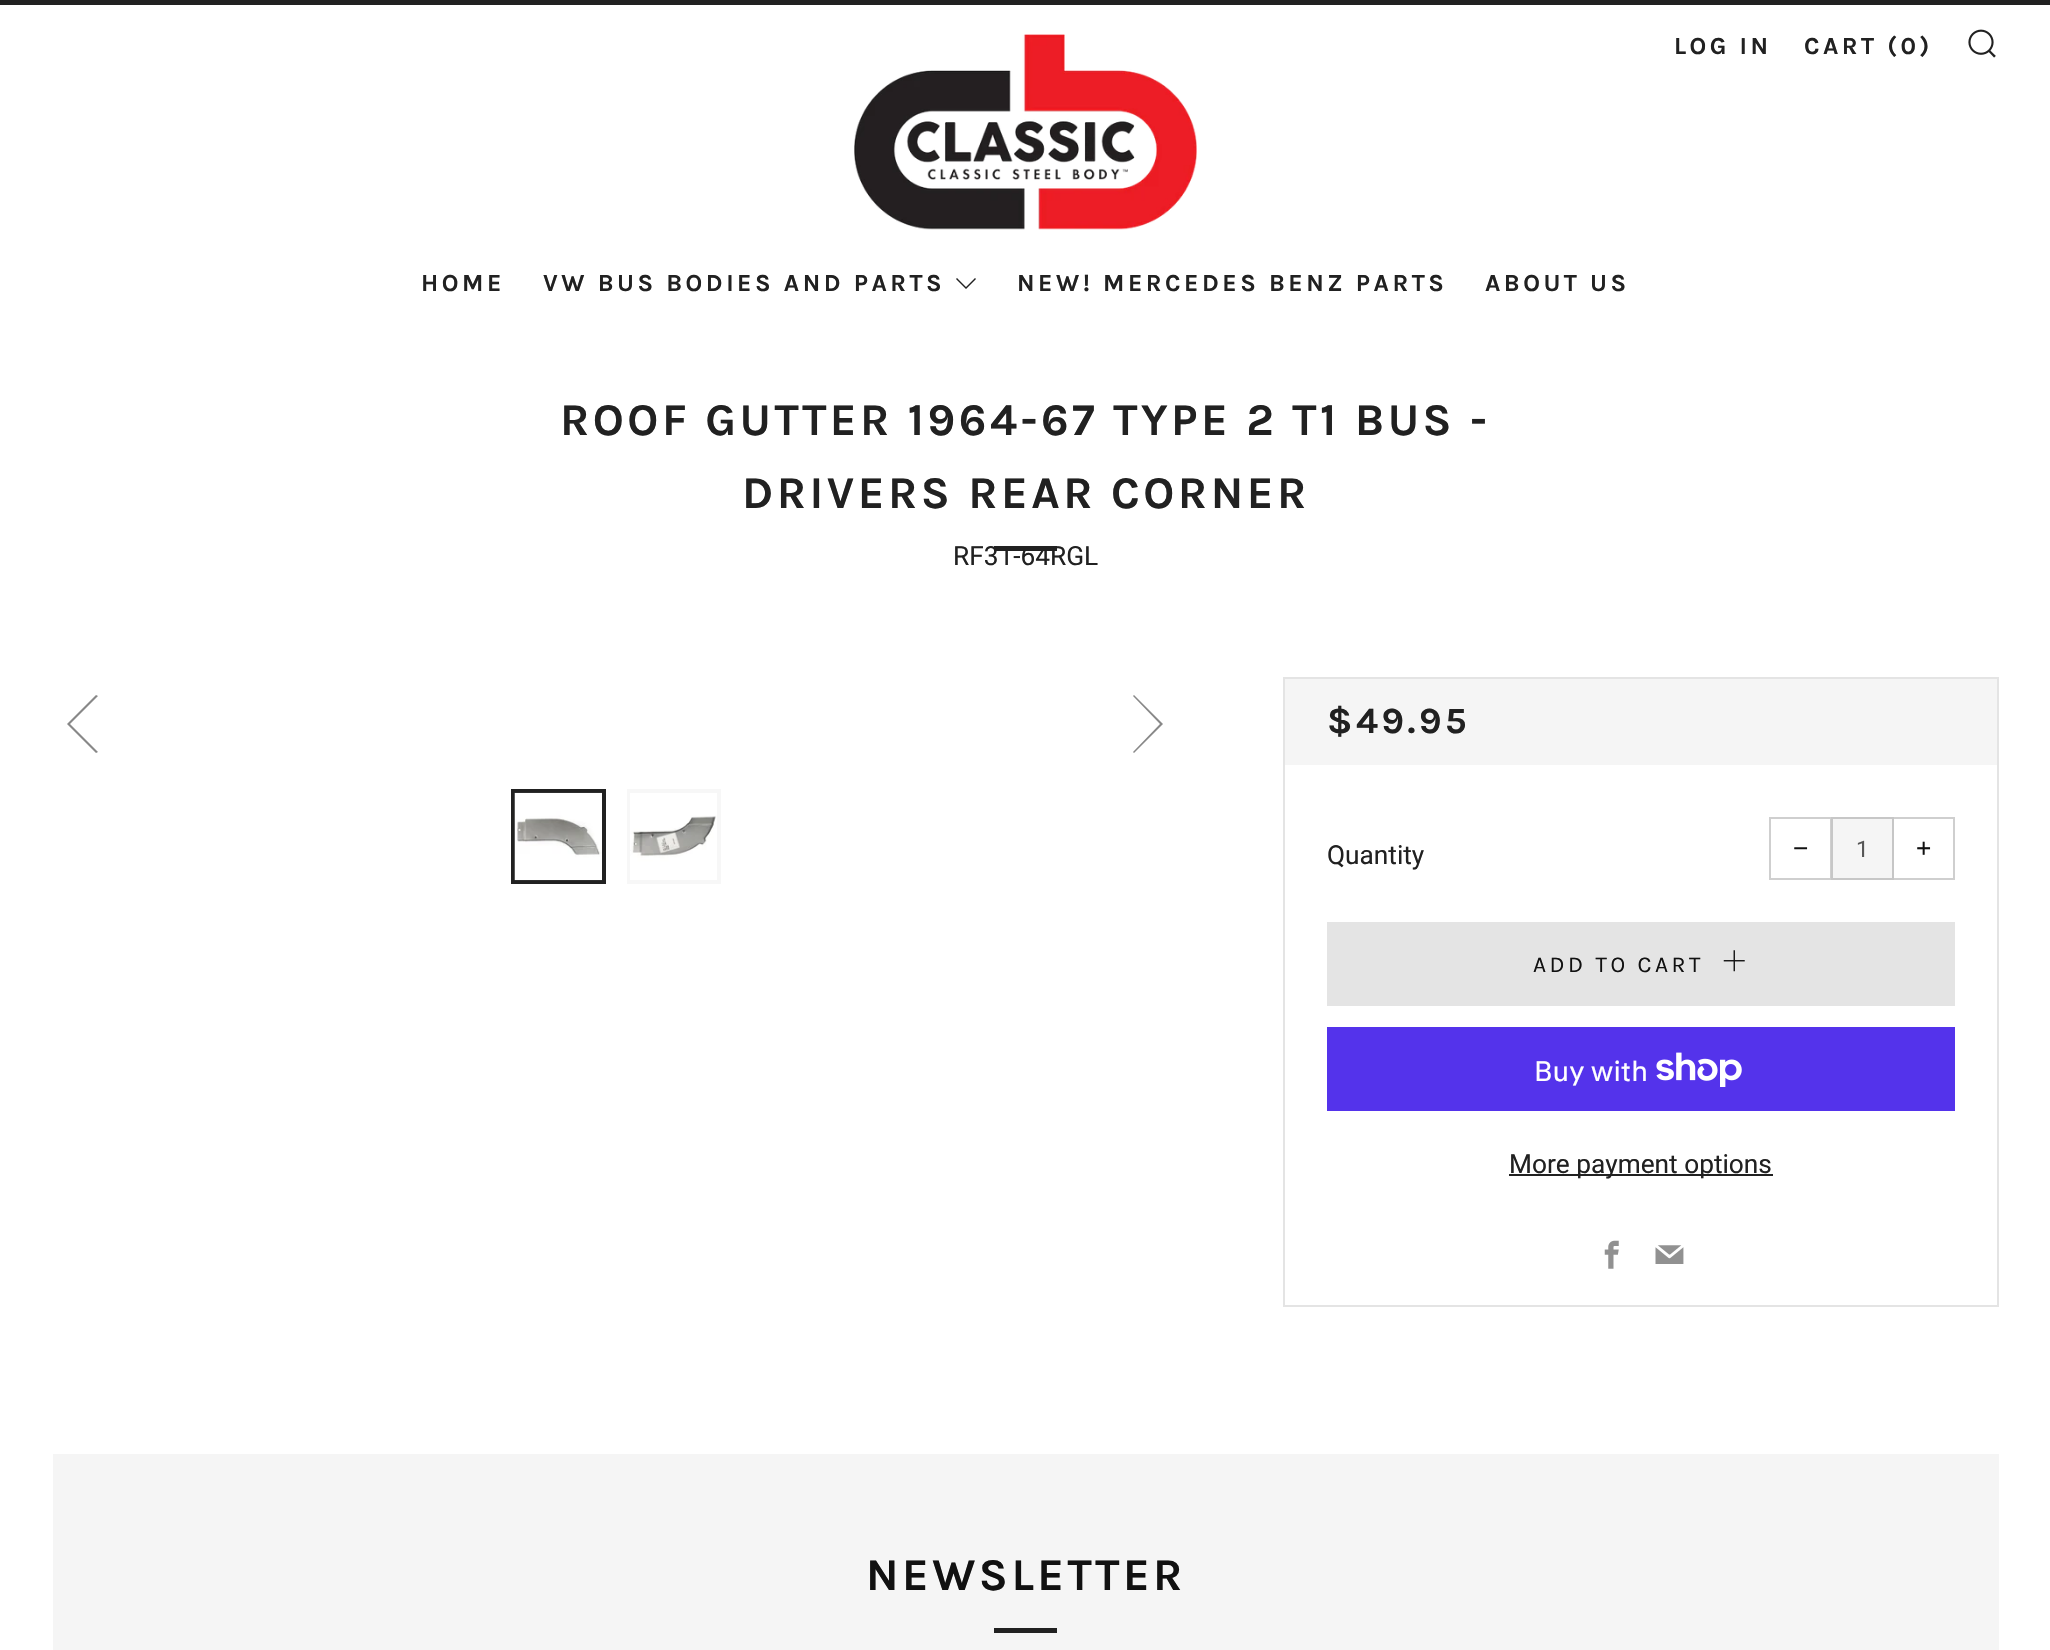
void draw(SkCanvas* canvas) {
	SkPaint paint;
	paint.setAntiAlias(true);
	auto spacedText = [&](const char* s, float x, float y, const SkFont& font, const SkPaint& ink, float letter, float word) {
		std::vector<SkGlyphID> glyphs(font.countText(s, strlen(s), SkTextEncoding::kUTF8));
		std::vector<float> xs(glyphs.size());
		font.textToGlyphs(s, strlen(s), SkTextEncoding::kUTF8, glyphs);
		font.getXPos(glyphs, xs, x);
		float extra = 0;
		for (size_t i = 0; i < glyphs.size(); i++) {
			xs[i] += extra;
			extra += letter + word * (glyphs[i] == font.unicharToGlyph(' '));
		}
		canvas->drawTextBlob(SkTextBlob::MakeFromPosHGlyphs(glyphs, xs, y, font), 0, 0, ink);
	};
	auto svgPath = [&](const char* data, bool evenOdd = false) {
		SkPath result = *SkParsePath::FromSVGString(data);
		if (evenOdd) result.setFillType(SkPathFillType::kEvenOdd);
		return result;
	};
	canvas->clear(0xffffffff);
	paint.setColor(0xff212121);
	canvas->drawRect(SkRect::MakeXYWH(0, 0, 2050, 5), paint);
	canvas->drawImageRect(SkImages::DeferredFromEncodedData(SkData::MakeFromFileName("img1.png")), SkRect::MakeXYWH(854, 34, 343, 196), SkSamplingOptions());
	SkFont f1(fontMgr->matchFamilyStyle("Karla", SkFontStyle::Bold()), 24.5);
	f1.setSubpixel(true);
	spacedText("LOG IN", 1674, 54, f1, paint, 3.5, 0);
	spacedText("CART (0)", 1804, 54, f1, paint, 3.5, 0);
	canvas->drawImageRect(SkImages::DeferredFromEncodedData(SkData::MakeFromFileName("img2.png")), SkRect::MakeXYWH(1968, 29, 28, 29), SkSamplingOptions());
	spacedText("HOME", 421, 291, f1, paint, 3.5, 0);
	spacedText("VW BUS BODIES AND PARTS", 543, 291, f1, paint, 3.5, 0);
	canvas->drawPath(svgPath("M957 278L956 279L966 289L976 279L975 278L966 287Z"), paint);
	spacedText("NEW! MERCEDES BENZ PARTS", 1017, 291, f1, paint, 3.5, 0);
	spacedText("ABOUT US", 1485, 291, f1, paint, 3.5, 0);
	SkFont f2(fontMgr->matchFamilyStyle("Karla", SkFontStyle::Bold()), 45.5);
	f2.setSubpixel(true);
	spacedText("ROOF GUTTER 1964-67 TYPE 2 T1 BUS -", 560, 435, f2, paint, 3.5, 0);
	spacedText("DRIVERS REAR CORNER", 742, 508, f2, paint, 3.5, 0);
	canvas->drawRect(SkRect::MakeXYWH(994, 546, 63, 5), paint);
	SkFont f3(fontMgr->matchFamilyStyle("Roboto", SkFontStyle::Normal()), 26.25);
	f3.setSubpixel(true);
	canvas->drawString("RF31-64RGL", 953, 565, f3, paint);
	paint.setColor(0xff888888);
	canvas->drawPath(svgPath("M98 696L96 695L67 724L96 753L98 752L70 724Z"), paint);
	canvas->drawPath(svgPath("M1133 752L1134 753L1163 724L1134 695L1133 696L1160 724Z"), paint);
	paint.setStroke(true);
	paint.setStrokeWidth(4);
	paint.setColor(0xff212121);
	canvas->drawRect(SkRect::MakeXYWH(513, 791, 91, 91), paint);
	canvas->drawImageRect(SkImages::DeferredFromEncodedData(SkData::MakeFromFileName("img3.png")), SkRect::MakeXYWH(514, 792, 88, 89), SkSamplingOptions());
	paint.setStroke(false);
	paint.setColor(0xfff7f7f7);
	canvas->drawRect(SkRect::MakeXYWH(627, 789, 94, 95), paint);
	canvas->drawImageRect(SkImages::DeferredFromEncodedData(SkData::MakeFromFileName("img4.png")), SkRect::MakeXYWH(630, 793, 87, 87), SkSamplingOptions());
	paint.setStroke(true);
	paint.setStrokeWidth(2);
	paint.setColor(0xffe4e4e4);
	canvas->drawRect(SkRect::MakeXYWH(1284, 678, 714, 628), paint);
	paint.setStroke(false);
	paint.setColor(0xfff5f5f5);
	canvas->drawRect(SkRect::MakeXYWH(1285, 679, 712, 86), paint);
	SkFont f4(fontMgr->matchFamilyStyle("Karla", SkFontStyle::Bold()), 37);
	f4.setSubpixel(true);
	paint.setColor(0xff212121);
	spacedText("$49.95", 1327, 733, f4, paint, 3.5, 0);
	canvas->drawString("Quantity", 1327, 864, f3, paint);
	paint.setStroke(true);
	paint.setColor(0xffcfcfcf);
	canvas->drawRect(SkRect::MakeXYWH(1770, 818, 61, 61), paint);
	SkFont f5(fontMgr->matchFamilyStyle("Liberation Sans", SkFontStyle::Normal()), 26.25);
	f5.setSubpixel(true);
	paint.setStroke(false);
	paint.setColor(0xff111111);
	canvas->drawString("−", 1793, 857, f5, paint);
	paint.setColor(0xfff5f5f5);
	canvas->drawRect(SkRect::MakeXYWH(1832, 818, 61, 61), paint);
	paint.setStroke(true);
	paint.setColor(0xffc7c7c7);
	canvas->drawRect(SkRect::MakeXYWH(1832, 818, 61, 61), paint);
	SkFont f6(fontMgr->matchFamilyStyle("Roboto", SkFontStyle::Normal()), 22.75);
	f6.setSubpixel(true);
	paint.setStroke(false);
	paint.setColor(0xff555555);
	canvas->drawString("1", 1856, 857, f6, paint);
	paint.setColor(0xccffffff);
	canvas->drawRect(SkRect::MakeXYWH(1892, 817, 2, 63), paint);
	paint.setStroke(true);
	paint.setColor(0x33111111);
	canvas->drawRect(SkRect::MakeXYWH(1893, 818, 61, 61), paint);
	paint.setStroke(false);
	paint.setColor(0xff111111);
	canvas->drawString("+", 1916, 857, f5, paint);
	paint.setColor(0xffe4e4e4);
	canvas->drawRect(SkRect::MakeXYWH(1327, 922, 628, 84), paint);
	SkFont f7(fontMgr->matchFamilyStyle("Karla", SkFontStyle::Normal()), 22.75);
	f7.setSubpixel(true);
	paint.setColor(0xff111111);
	spacedText("ADD TO CART", 1533, 972, f7, paint, 3.5, 0);
	canvas->drawImageRect(SkImages::DeferredFromEncodedData(SkData::MakeFromFileName("img5.png")), SkRect::MakeXYWH(1723, 950, 22, 22), SkSamplingOptions());
	paint.setColor(0xff5433eb);
	canvas->drawRect(SkRect::MakeXYWH(1327, 1027, 628, 84), paint);
	SkFont f8(fontMgr->matchFamilyStyle("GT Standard", SkFontStyle::Normal()), 28);
	f8.setSubpixel(true);
	paint.setColor(0xffffffff);
	canvas->drawString("Buy with", 1534, 1081, f8, paint);
	canvas->drawImageRect(SkImages::DeferredFromEncodedData(SkData::MakeFromFileName("img6.png")), SkRect::MakeXYWH(1656, 1052, 86, 35), SkSamplingOptions());
	paint.setColor(0xff212121);
	canvas->drawRect(SkRect::MakeXYWH(1509, 1174, 264, 2), paint);
	canvas->drawString("More payment options", 1509, 1173, f3, paint);
	canvas->drawImageRect(SkImages::DeferredFromEncodedData(SkData::MakeFromFileName("img7.png")), SkRect::MakeXYWH(1604, 1240, 15, 29), SkSamplingOptions());
	canvas->drawImageRect(SkImages::DeferredFromEncodedData(SkData::MakeFromFileName("img8.png")), SkRect::MakeXYWH(1655, 1245, 29, 19), SkSamplingOptions());
	paint.setColor(0xfff5f5f5);
	canvas->drawRect(SkRect::MakeXYWH(53, 1454, 1946, 196), paint);
	paint.setColor(0xff111111);
	spacedText("NEWSLETTER", 866, 1590, f2, paint, 3.5, 0);
	paint.setColor(0xff212121);
	canvas->drawRect(SkRect::MakeXYWH(994, 1628, 63, 5), paint);
}
